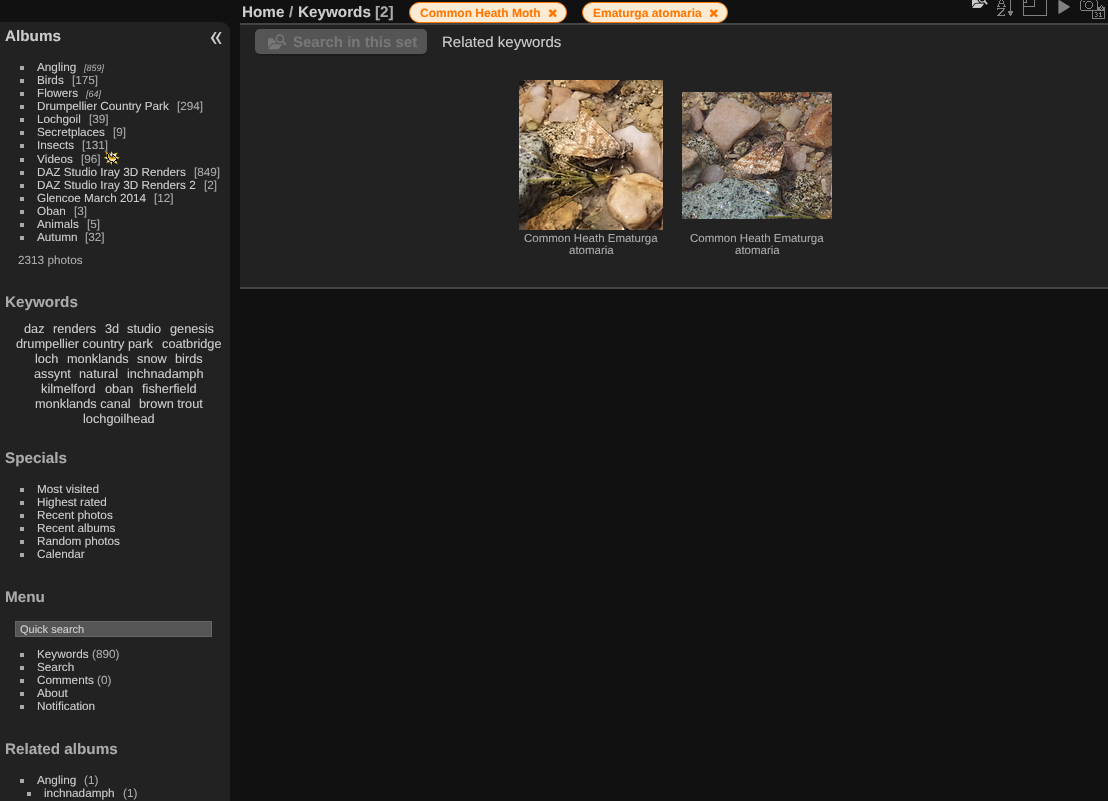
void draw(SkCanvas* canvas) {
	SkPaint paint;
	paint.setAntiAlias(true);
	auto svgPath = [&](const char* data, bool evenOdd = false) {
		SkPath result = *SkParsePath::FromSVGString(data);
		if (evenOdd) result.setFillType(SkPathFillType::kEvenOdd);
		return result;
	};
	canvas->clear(0xff111111);
	paint.setColor(0xff222222);
	canvas->drawPath(svgPath("M0 22H220C225.5 22 230 26.5 230 32V801C230 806.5 225.5 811 220 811H0Z"), paint);
	SkFont f1(fontMgr->matchFamilyStyle("Liberation Sans", SkFontStyle::Bold()), 15.25);
	f1.setSubpixel(true);
	paint.setColor(0xffcccccc);
	canvas->drawString("Albums", 5, 41, f1, paint);
	paint.setColor(0xffaaaaaa);
	canvas->drawRect(SkRect::MakeXYWH(20, 66, 4, 4), paint);
	SkFont f2(fontMgr->matchFamilyStyle("Liberation Sans", SkFontStyle::Normal()), 11.75);
	f2.setSubpixel(true);
	paint.setColor(0xffcccccc);
	canvas->drawString("Angling", 37, 71, f2, paint);
	SkFont f3(fontMgr->matchFamilyStyle("Liberation Sans", SkFontStyle::Italic()), 9);
	f3.setSubpixel(true);
	paint.setColor(0xffaaaaaa);
	canvas->drawString("[859]", 84, 71, f3, paint);
	canvas->drawRect(SkRect::MakeXYWH(20, 79, 4, 4), paint);
	paint.setColor(0xffcccccc);
	canvas->drawString("Birds", 37, 84, f2, paint);
	paint.setColor(0xffaaaaaa);
	canvas->drawString("[175]", 72, 84, f2, paint);
	canvas->drawRect(SkRect::MakeXYWH(20, 92, 4, 4), paint);
	paint.setColor(0xffcccccc);
	canvas->drawString("Flowers", 37, 97, f2, paint);
	paint.setColor(0xffaaaaaa);
	canvas->drawString("[64]", 86, 97, f3, paint);
	canvas->drawRect(SkRect::MakeXYWH(20, 105, 4, 4), paint);
	paint.setColor(0xffcccccc);
	canvas->drawString("Drumpellier Country Park", 37, 110, f2, paint);
	paint.setColor(0xffaaaaaa);
	canvas->drawString("[294]", 177, 110, f2, paint);
	canvas->drawRect(SkRect::MakeXYWH(20, 118, 4, 4), paint);
	paint.setColor(0xffcccccc);
	canvas->drawString("Lochgoil", 37, 123, f2, paint);
	paint.setColor(0xffaaaaaa);
	canvas->drawString("[39]", 89, 123, f2, paint);
	canvas->drawRect(SkRect::MakeXYWH(20, 131, 4, 4), paint);
	paint.setColor(0xffcccccc);
	canvas->drawString("Secretplaces", 37, 136, f2, paint);
	paint.setColor(0xffaaaaaa);
	canvas->drawString("[9]", 113, 136, f2, paint);
	canvas->drawRect(SkRect::MakeXYWH(20, 144, 4, 4), paint);
	paint.setColor(0xffcccccc);
	canvas->drawString("Insects", 37, 149, f2, paint);
	paint.setColor(0xffaaaaaa);
	canvas->drawString("[131]", 82, 149, f2, paint);
	canvas->drawRect(SkRect::MakeXYWH(20, 158, 4, 4), paint);
	paint.setColor(0xffcccccc);
	canvas->drawString("Videos", 37, 163, f2, paint);
	paint.setColor(0xffaaaaaa);
	canvas->drawString("[96]", 81, 163, f2, paint);
	canvas->drawImageRect(SkImages::DeferredFromEncodedData(SkData::MakeFromFileName("img1.png")), SkRect::MakeXYWH(104, 151, 16, 14), SkSamplingOptions());
	canvas->drawRect(SkRect::MakeXYWH(20, 171, 4, 4), paint);
	paint.setColor(0xffcccccc);
	canvas->drawString("DAZ Studio Iray 3D Renders", 37, 176, f2, paint);
	paint.setColor(0xffaaaaaa);
	canvas->drawString("[849]", 194, 176, f2, paint);
	canvas->drawRect(SkRect::MakeXYWH(20, 184, 4, 4), paint);
	paint.setColor(0xffcccccc);
	canvas->drawString("DAZ Studio Iray 3D Renders 2", 37, 189, f2, paint);
	paint.setColor(0xffaaaaaa);
	canvas->drawString("[2]", 204, 189, f2, paint);
	canvas->drawRect(SkRect::MakeXYWH(20, 197, 4, 4), paint);
	paint.setColor(0xffcccccc);
	canvas->drawString("Glencoe March 2014", 37, 202, f2, paint);
	paint.setColor(0xffaaaaaa);
	canvas->drawString("[12]", 154, 202, f2, paint);
	canvas->drawRect(SkRect::MakeXYWH(20, 210, 4, 4), paint);
	paint.setColor(0xffcccccc);
	canvas->drawString("Oban", 37, 215, f2, paint);
	paint.setColor(0xffaaaaaa);
	canvas->drawString("[3]", 74, 215, f2, paint);
	canvas->drawRect(SkRect::MakeXYWH(20, 223, 4, 4), paint);
	paint.setColor(0xffcccccc);
	canvas->drawString("Animals", 37, 228, f2, paint);
	paint.setColor(0xffaaaaaa);
	canvas->drawString("[5]", 87, 228, f2, paint);
	canvas->drawRect(SkRect::MakeXYWH(20, 236, 4, 4), paint);
	paint.setColor(0xffcccccc);
	canvas->drawString("Autumn", 37, 241, f2, paint);
	paint.setColor(0xffaaaaaa);
	canvas->drawString("[32]", 85, 241, f2, paint);
	canvas->drawString("2313 photos", 18, 264, f2, paint);
	canvas->drawString("Keywords", 5, 307, f1, paint);
	SkFont f4(fontMgr->matchFamilyStyle("Liberation Sans", SkFontStyle::Normal()), 12.75);
	f4.setSubpixel(true);
	paint.setColor(0xffcccccc);
	canvas->drawString("daz", 24, 333, f4, paint);
	canvas->drawString("renders", 53, 333, f4, paint);
	canvas->drawString("3d", 105, 333, f4, paint);
	canvas->drawString("studio", 127, 333, f4, paint);
	canvas->drawString("genesis", 170, 333, f4, paint);
	canvas->drawString("drumpellier country park", 16, 348, f4, paint);
	canvas->drawString("coatbridge", 162, 348, f4, paint);
	canvas->drawString("loch", 35, 363, f4, paint);
	canvas->drawString("monklands", 67, 363, f4, paint);
	canvas->drawString("snow", 137, 363, f4, paint);
	canvas->drawString("birds", 175, 363, f4, paint);
	canvas->drawString("assynt", 34, 378, f4, paint);
	canvas->drawString("natural", 79, 378, f4, paint);
	canvas->drawString("inchnadamph", 127, 378, f4, paint);
	canvas->drawString("kilmelford", 41, 393, f4, paint);
	canvas->drawString("oban", 105, 393, f4, paint);
	canvas->drawString("fisherfield", 142, 393, f4, paint);
	canvas->drawString("monklands canal", 35, 408, f4, paint);
	canvas->drawString("brown trout", 139, 408, f4, paint);
	canvas->drawString("lochgoilhead", 83, 423, f4, paint);
	paint.setColor(0xffaaaaaa);
	canvas->drawString("Specials", 5, 463, f1, paint);
	canvas->drawRect(SkRect::MakeXYWH(20, 488, 4, 4), paint);
	paint.setColor(0xffcccccc);
	canvas->drawString("Most visited", 37, 493, f2, paint);
	paint.setColor(0xffaaaaaa);
	canvas->drawRect(SkRect::MakeXYWH(20, 501, 4, 4), paint);
	paint.setColor(0xffcccccc);
	canvas->drawString("Highest rated", 37, 506, f2, paint);
	paint.setColor(0xffaaaaaa);
	canvas->drawRect(SkRect::MakeXYWH(20, 514, 4, 4), paint);
	paint.setColor(0xffcccccc);
	canvas->drawString("Recent photos", 37, 519, f2, paint);
	paint.setColor(0xffaaaaaa);
	canvas->drawRect(SkRect::MakeXYWH(20, 527, 4, 4), paint);
	paint.setColor(0xffcccccc);
	canvas->drawString("Recent albums", 37, 532, f2, paint);
	paint.setColor(0xffaaaaaa);
	canvas->drawRect(SkRect::MakeXYWH(20, 540, 4, 4), paint);
	paint.setColor(0xffcccccc);
	canvas->drawString("Random photos", 37, 545, f2, paint);
	paint.setColor(0xffaaaaaa);
	canvas->drawRect(SkRect::MakeXYWH(20, 553, 4, 4), paint);
	paint.setColor(0xffcccccc);
	canvas->drawString("Calendar", 37, 558, f2, paint);
	paint.setColor(0xffaaaaaa);
	canvas->drawString("Menu", 5, 602, f1, paint);
	paint.setColor(0xff555555);
	canvas->drawRect(SkRect::MakeXYWH(15.5, 621.5, 196, 15), paint);
	paint.setStroke(true);
	paint.setStrokeWidth(1);
	paint.setColor(0xff666666);
	canvas->drawRect(SkRect::MakeXYWH(15.5, 621.5, 196, 15), paint);
	SkFont f5(fontMgr->matchFamilyStyle("Liberation Sans", SkFontStyle::Normal()), 11);
	f5.setSubpixel(true);
	paint.setStroke(false);
	paint.setColor(0xffcccccc);
	canvas->drawString("Quick search", 20, 633, f5, paint);
	paint.setColor(0xffaaaaaa);
	canvas->drawRect(SkRect::MakeXYWH(20, 653, 4, 4), paint);
	paint.setColor(0xffcccccc);
	canvas->drawString("Keywords", 37, 658, f2, paint);
	paint.setColor(0xffaaaaaa);
	canvas->drawString("(890)", 92, 658, f2, paint);
	canvas->drawRect(SkRect::MakeXYWH(20, 666, 4, 4), paint);
	paint.setColor(0xffcccccc);
	canvas->drawString("Search", 37, 671, f2, paint);
	paint.setColor(0xffaaaaaa);
	canvas->drawRect(SkRect::MakeXYWH(20, 679, 4, 4), paint);
	paint.setColor(0xffcccccc);
	canvas->drawString("Comments", 37, 684, f2, paint);
	paint.setColor(0xffaaaaaa);
	canvas->drawString("(0)", 97, 684, f2, paint);
	canvas->drawRect(SkRect::MakeXYWH(20, 692, 4, 4), paint);
	paint.setColor(0xffcccccc);
	canvas->drawString("About", 37, 697, f2, paint);
	paint.setColor(0xffaaaaaa);
	canvas->drawRect(SkRect::MakeXYWH(20, 705, 4, 4), paint);
	paint.setColor(0xffcccccc);
	canvas->drawString("Notification", 37, 710, f2, paint);
	paint.setColor(0xffaaaaaa);
	canvas->drawString("Related albums", 5, 754, f1, paint);
	canvas->drawRect(SkRect::MakeXYWH(20, 779, 4, 4), paint);
	paint.setColor(0xffcccccc);
	canvas->drawString("Angling", 37, 784, f2, paint);
	paint.setColor(0xffaaaaaa);
	canvas->drawString("(1)", 84, 784, f2, paint);
	canvas->drawRect(SkRect::MakeXYWH(27, 792, 4, 4), paint);
	paint.setColor(0xffcccccc);
	canvas->drawString("inchnadamph", 44, 797, f2, paint);
	paint.setColor(0xffaaaaaa);
	canvas->drawString("(1)", 123, 797, f2, paint);
	paint.setColor(0xff222222);
	canvas->drawRect(SkRect::MakeXYWH(240, 25, 868, 262), paint);
	paint.setColor(0xff444444);
	canvas->drawRect(SkRect::MakeXYWH(240, 287, 868, 2), paint);
	canvas->drawRect(SkRect::MakeXYWH(240, 23, 868, 2), paint);
	paint.setColor(0xffcccccc);
	canvas->drawString("Home", 242, 17, f1, paint);
	paint.setColor(0xffaaaaaa);
	canvas->drawString("/", 289, 17, f1, paint);
	paint.setColor(0xffcccccc);
	canvas->drawString("Keywords", 298, 17, f1, paint);
	paint.setColor(0xffaaaaaa);
	canvas->drawString("[2]", 375, 17, f1, paint);
	paint.setColor(0xfffcead2);
	canvas->drawRoundRect(SkRect::MakeXYWH(409.5, 2.5, 157, 20), 10, 10, paint);
	paint.setStroke(true);
	paint.setColor(0xffff7700);
	canvas->drawRoundRect(SkRect::MakeXYWH(409.5, 2.5, 157, 20), 10, 10, paint);
	SkFont f6(fontMgr->matchFamilyStyle("Liberation Sans", SkFontStyle::Bold()), 12);
	f6.setSubpixel(true);
	paint.setStroke(false);
	canvas->drawString("Common Heath Moth", 420, 17, f6, paint);
	canvas->drawImageRect(SkImages::DeferredFromEncodedData(SkData::MakeFromFileName("img2.png")), SkRect::MakeXYWH(548, 9, 9, 9), SkSamplingOptions());
	paint.setColor(0xfffcead2);
	canvas->drawRoundRect(SkRect::MakeXYWH(582.5, 2.5, 145, 20), 10, 10, paint);
	paint.setStroke(true);
	paint.setColor(0xffff7700);
	canvas->drawRoundRect(SkRect::MakeXYWH(582.5, 2.5, 145, 20), 10, 10, paint);
	paint.setStroke(false);
	canvas->drawString("Ematurga atomaria", 593, 17, f6, paint);
	canvas->drawImageRect(SkImages::DeferredFromEncodedData(SkData::MakeFromFileName("img2.png")), SkRect::MakeXYWH(709, 9, 9, 9), SkSamplingOptions());
	canvas->drawImageRect(SkImages::DeferredFromEncodedData(SkData::MakeFromFileName("img3.png")), SkRect::MakeXYWH(972, 0, 16, 8), SkSamplingOptions());
	canvas->drawImageRect(SkImages::DeferredFromEncodedData(SkData::MakeFromFileName("img4.png")), SkRect::MakeXYWH(997, 0, 16, 16), SkSamplingOptions());
	canvas->drawImageRect(SkImages::DeferredFromEncodedData(SkData::MakeFromFileName("img5.png")), SkRect::MakeXYWH(1023, 0, 24, 16), SkSamplingOptions());
	canvas->drawImageRect(SkImages::DeferredFromEncodedData(SkData::MakeFromFileName("img6.png")), SkRect::MakeXYWH(1058, 0, 12, 14), SkSamplingOptions());
	canvas->drawImageRect(SkImages::DeferredFromEncodedData(SkData::MakeFromFileName("img7.png")), SkRect::MakeXYWH(1080, 0, 25, 19), SkSamplingOptions());
	paint.setColor(0xff1d1d1d);
	canvas->drawPath(svgPath("M255 49V51C255 54 257 56 260 56H422C425 56 427 54 427 51V49C427 52 425 54 422 54H260C257 54 255 52 255 49Z"), paint);
	paint.setColor(0xff555555);
	canvas->drawRoundRect(SkRect::MakeXYWH(255, 29, 172, 25), 5, 5, paint);
	canvas->drawImageRect(SkImages::DeferredFromEncodedData(SkData::MakeFromFileName("img8.png")), SkRect::MakeXYWH(268, 34, 19, 16), SkSamplingOptions());
	SkFont f7(fontMgr->matchFamilyStyle("Liberation Sans", SkFontStyle::Bold()), 15);
	f7.setSubpixel(true);
	paint.setColor(0xff777777);
	canvas->drawString("Search in this set", 293, 47, f7, paint);
	SkFont f8(fontMgr->matchFamilyStyle("Liberation Sans", SkFontStyle::Normal()), 15);
	f8.setSubpixel(true);
	paint.setColor(0xffcccccc);
	canvas->drawString("Related keywords", 442, 47, f8, paint);
	canvas->drawImageRect(SkImages::DeferredFromEncodedData(SkData::MakeFromFileName("img9.png")), SkRect::MakeXYWH(519, 80, 144, 150), SkSamplingOptions());
	SkFont f9(fontMgr->matchFamilyStyle("Liberation Sans", SkFontStyle::Normal()), 11.5);
	f9.setSubpixel(true);
	paint.setColor(0xffaaaaaa);
	canvas->drawString("Common Heath Ematurga", 524, 242, f9, paint);
	canvas->drawString("atomaria", 569, 254, f9, paint);
	canvas->drawImageRect(SkImages::DeferredFromEncodedData(SkData::MakeFromFileName("img10.png")), SkRect::MakeXYWH(682, 92, 150, 127), SkSamplingOptions());
	canvas->drawString("Common Heath Ematurga", 690, 242, f9, paint);
	canvas->drawString("atomaria", 735, 254, f9, paint);
	canvas->drawImageRect(SkImages::DeferredFromEncodedData(SkData::MakeFromFileName("img11.png")), SkRect::MakeXYWH(210, 32, 12, 12), SkSamplingOptions());
}
